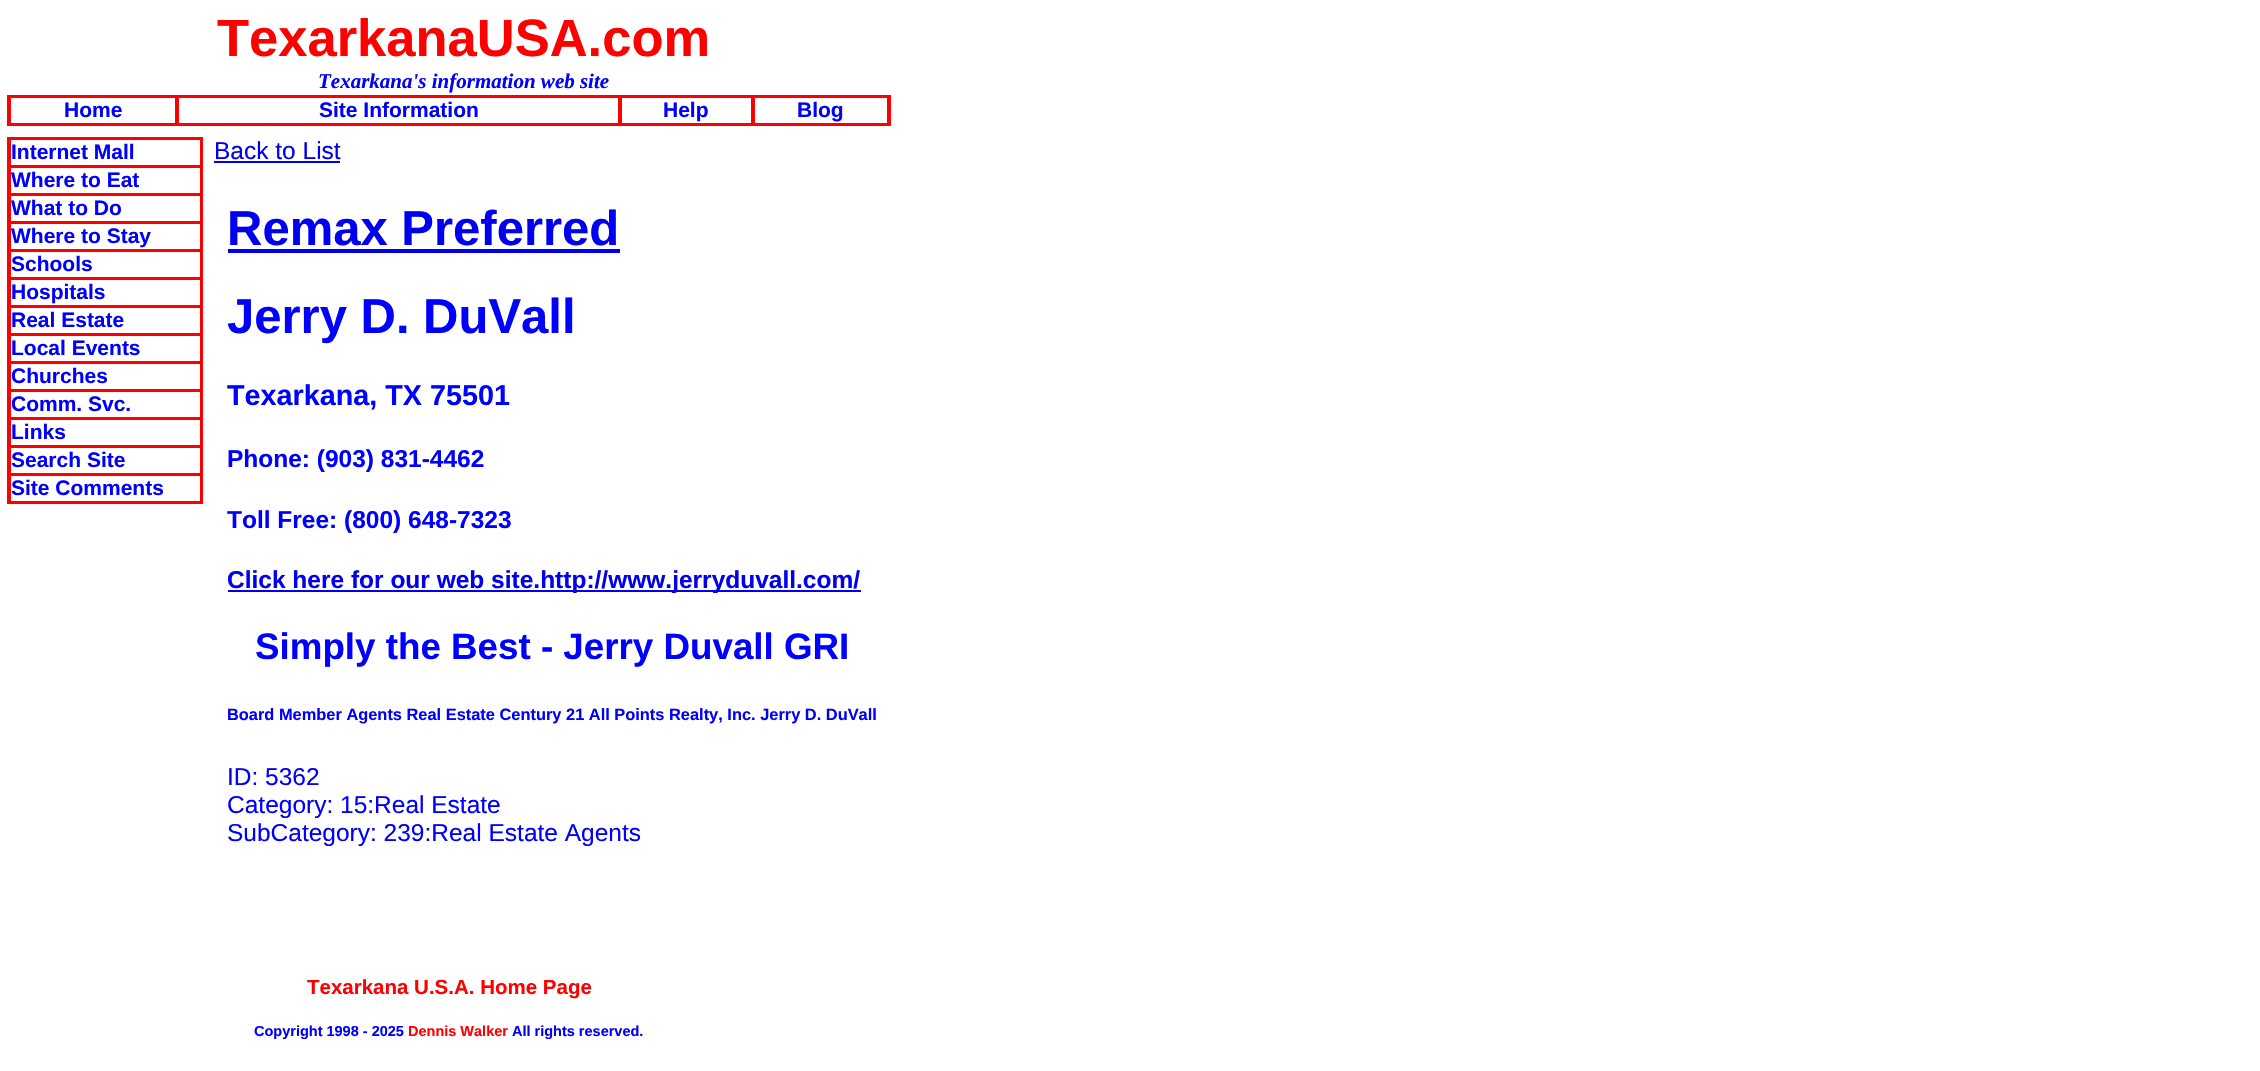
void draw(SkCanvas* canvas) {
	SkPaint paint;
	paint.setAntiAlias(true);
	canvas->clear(0xffffffff);
	SkFont f1(fontMgr->matchFamilyStyle("Liberation Sans", SkFontStyle::Bold()), 52.5);
	f1.setSubpixel(true);
	paint.setColor(0xffff0000);
	canvas->drawString("TexarkanaUSA.com", 217, 56, f1, paint);
	SkFont f2(fontMgr->matchFamilyStyle("Liberation Serif", SkFontStyle::BoldItalic()), 21);
	f2.setSubpixel(true);
	paint.setColor(0xff0000ff);
	canvas->drawString("Texarkana's information web site", 318, 88, f2, paint);
	paint.setColor(0xffff0000);
	canvas->drawRect(SkRect::MakeXYWH(9, 97, 880, 1), paint);
	canvas->drawRect(SkRect::MakeXYWH(175, 96, 2, 28), paint);
	canvas->drawRect(SkRect::MakeXYWH(9, 123, 168, 1), paint);
	canvas->drawRect(SkRect::MakeXYWH(9, 96, 2, 28), paint);
	canvas->drawRect(SkRect::MakeXYWH(618, 96, 2, 28), paint);
	canvas->drawRect(SkRect::MakeXYWH(177, 123, 443, 1), paint);
	canvas->drawRect(SkRect::MakeXYWH(177, 96, 2, 28), paint);
	canvas->drawRect(SkRect::MakeXYWH(751, 96, 2, 28), paint);
	canvas->drawRect(SkRect::MakeXYWH(620, 123, 133, 1), paint);
	canvas->drawRect(SkRect::MakeXYWH(620, 96, 2, 28), paint);
	canvas->drawRect(SkRect::MakeXYWH(887, 96, 2, 28), paint);
	canvas->drawRect(SkRect::MakeXYWH(753, 123, 136, 1), paint);
	canvas->drawRect(SkRect::MakeXYWH(753, 96, 2, 28), paint);
	canvas->drawRect(SkRect::MakeXYWH(7, 95, 884, 2), paint);
	canvas->drawRect(SkRect::MakeXYWH(889, 95, 2, 31), paint);
	canvas->drawRect(SkRect::MakeXYWH(7, 124, 884, 2), paint);
	canvas->drawRect(SkRect::MakeXYWH(7, 95, 2, 31), paint);
	SkFont f3(fontMgr->matchFamilyStyle("Liberation Sans", SkFontStyle::Bold()), 21);
	f3.setSubpixel(true);
	paint.setColor(0xff0000ff);
	canvas->drawString("Home", 64, 117, f3, paint);
	canvas->drawString("Site Information", 319, 117, f3, paint);
	canvas->drawString("Help", 663, 117, f3, paint);
	canvas->drawString("Blog", 797, 117, f3, paint);
	paint.setColor(0xffff0000);
	canvas->drawRect(SkRect::MakeXYWH(9, 139, 192, 1), paint);
	canvas->drawRect(SkRect::MakeXYWH(200, 138, 1, 28), paint);
	canvas->drawRect(SkRect::MakeXYWH(9, 165, 192, 3), paint);
	canvas->drawRect(SkRect::MakeXYWH(9, 138, 2, 28), paint);
	canvas->drawRect(SkRect::MakeXYWH(7, 137, 196, 2), paint);
	canvas->drawRect(SkRect::MakeXYWH(201, 137, 2, 367), paint);
	canvas->drawRect(SkRect::MakeXYWH(7, 502, 196, 2), paint);
	canvas->drawRect(SkRect::MakeXYWH(7, 137, 2, 367), paint);
	paint.setColor(0xff0000ff);
	canvas->drawString("Internet Mall", 11, 159, f3, paint);
	paint.setColor(0xffff0000);
	canvas->drawRect(SkRect::MakeXYWH(200, 166, 1, 28), paint);
	canvas->drawRect(SkRect::MakeXYWH(9, 193, 192, 3), paint);
	canvas->drawRect(SkRect::MakeXYWH(9, 166, 2, 28), paint);
	paint.setColor(0xff0000ff);
	canvas->drawString("Where to Eat", 11, 187, f3, paint);
	paint.setColor(0xffff0000);
	canvas->drawRect(SkRect::MakeXYWH(200, 194, 1, 28), paint);
	canvas->drawRect(SkRect::MakeXYWH(9, 221, 192, 3), paint);
	canvas->drawRect(SkRect::MakeXYWH(9, 194, 2, 28), paint);
	paint.setColor(0xff0000ff);
	canvas->drawString("What to Do", 11, 215, f3, paint);
	paint.setColor(0xffff0000);
	canvas->drawRect(SkRect::MakeXYWH(200, 222, 1, 28), paint);
	canvas->drawRect(SkRect::MakeXYWH(9, 249, 192, 3), paint);
	canvas->drawRect(SkRect::MakeXYWH(9, 222, 2, 28), paint);
	paint.setColor(0xff0000ff);
	canvas->drawString("Where to Stay", 11, 243, f3, paint);
	paint.setColor(0xffff0000);
	canvas->drawRect(SkRect::MakeXYWH(200, 250, 1, 28), paint);
	canvas->drawRect(SkRect::MakeXYWH(9, 277, 192, 3), paint);
	canvas->drawRect(SkRect::MakeXYWH(9, 250, 2, 28), paint);
	paint.setColor(0xff0000ff);
	canvas->drawString("Schools", 11, 271, f3, paint);
	paint.setColor(0xffff0000);
	canvas->drawRect(SkRect::MakeXYWH(200, 278, 1, 28), paint);
	canvas->drawRect(SkRect::MakeXYWH(9, 305, 192, 3), paint);
	canvas->drawRect(SkRect::MakeXYWH(9, 278, 2, 28), paint);
	paint.setColor(0xff0000ff);
	canvas->drawString("Hospitals", 11, 299, f3, paint);
	paint.setColor(0xffff0000);
	canvas->drawRect(SkRect::MakeXYWH(200, 306, 1, 28), paint);
	canvas->drawRect(SkRect::MakeXYWH(9, 333, 192, 3), paint);
	canvas->drawRect(SkRect::MakeXYWH(9, 306, 2, 28), paint);
	paint.setColor(0xff0000ff);
	canvas->drawString("Real Estate", 11, 327, f3, paint);
	paint.setColor(0xffff0000);
	canvas->drawRect(SkRect::MakeXYWH(200, 334, 1, 28), paint);
	canvas->drawRect(SkRect::MakeXYWH(9, 361, 192, 3), paint);
	canvas->drawRect(SkRect::MakeXYWH(9, 334, 2, 28), paint);
	paint.setColor(0xff0000ff);
	canvas->drawString("Local Events", 11, 355, f3, paint);
	paint.setColor(0xffff0000);
	canvas->drawRect(SkRect::MakeXYWH(200, 362, 1, 28), paint);
	canvas->drawRect(SkRect::MakeXYWH(9, 389, 192, 3), paint);
	canvas->drawRect(SkRect::MakeXYWH(9, 362, 2, 28), paint);
	paint.setColor(0xff0000ff);
	canvas->drawString("Churches", 11, 383, f3, paint);
	paint.setColor(0xffff0000);
	canvas->drawRect(SkRect::MakeXYWH(200, 390, 1, 28), paint);
	canvas->drawRect(SkRect::MakeXYWH(9, 417, 192, 3), paint);
	canvas->drawRect(SkRect::MakeXYWH(9, 390, 2, 28), paint);
	paint.setColor(0xff0000ff);
	canvas->drawString("Comm. Svc.", 11, 411, f3, paint);
	paint.setColor(0xffff0000);
	canvas->drawRect(SkRect::MakeXYWH(200, 418, 1, 28), paint);
	canvas->drawRect(SkRect::MakeXYWH(9, 445, 192, 3), paint);
	canvas->drawRect(SkRect::MakeXYWH(9, 418, 2, 28), paint);
	paint.setColor(0xff0000ff);
	canvas->drawString("Links", 11, 439, f3, paint);
	paint.setColor(0xffff0000);
	canvas->drawRect(SkRect::MakeXYWH(200, 446, 1, 28), paint);
	canvas->drawRect(SkRect::MakeXYWH(9, 473, 192, 3), paint);
	canvas->drawRect(SkRect::MakeXYWH(9, 446, 2, 28), paint);
	paint.setColor(0xff0000ff);
	canvas->drawString("Search Site", 11, 467, f3, paint);
	paint.setColor(0xffff0000);
	canvas->drawRect(SkRect::MakeXYWH(200, 474, 1, 28), paint);
	canvas->drawRect(SkRect::MakeXYWH(9, 501, 192, 1), paint);
	canvas->drawRect(SkRect::MakeXYWH(9, 474, 2, 28), paint);
	paint.setColor(0xff0000ff);
	canvas->drawString("Site Comments", 11, 495, f3, paint);
	SkFont f4(fontMgr->matchFamilyStyle("Liberation Sans", SkFontStyle::Normal()), 24.5);
	f4.setSubpixel(true);
	paint.setColor(0xff0000ee);
	canvas->drawString("Back to List", 214, 159, f4, paint);
	canvas->drawRect(SkRect::MakeXYWH(214, 161, 126, 2), paint);
	SkFont f5(fontMgr->matchFamilyStyle("Liberation Sans", SkFontStyle::Bold()), 49);
	f5.setSubpixel(true);
	canvas->drawString("Remax Preferred", 227, 245, f5, paint);
	canvas->drawRect(SkRect::MakeXYWH(228, 249, 392, 4), paint);
	paint.setColor(0xff0000ff);
	canvas->drawString("Jerry D. DuVall", 227, 333, f5, paint);
	SkFont f6(fontMgr->matchFamilyStyle("Liberation Sans", SkFontStyle::Bold()), 28.75);
	f6.setSubpixel(true);
	canvas->drawString("Texarkana, TX 75501", 227, 405, f6, paint);
	SkFont f7(fontMgr->matchFamilyStyle("Liberation Sans", SkFontStyle::Bold()), 24.5);
	f7.setSubpixel(true);
	canvas->drawString("Phone: (903) 831-4462", 227, 467, f7, paint);
	canvas->drawString("Toll Free: (800) 648-7323", 227, 528, f7, paint);
	paint.setColor(0xff0000ee);
	canvas->drawRect(SkRect::MakeXYWH(228, 590, 633, 2), paint);
	canvas->drawString("Click here for our web site.http://www.jerryduvall.com/", 227, 588, f7, paint);
	SkFont f8(fontMgr->matchFamilyStyle("Liberation Sans", SkFontStyle::Bold()), 36.75);
	f8.setSubpixel(true);
	paint.setColor(0xff0000ff);
	canvas->drawString("Simply the Best - Jerry Duvall GRI", 255, 659, f8, paint);
	SkFont f9(fontMgr->matchFamilyStyle("Liberation Sans", SkFontStyle::Bold()), 16.4);
	f9.setSubpixel(true);
	canvas->drawString("Board Member Agents Real Estate Century 21 All Points Realty, Inc. Jerry D. DuVall", 227, 720, f9, paint);
	canvas->drawString("ID: 5362", 227, 785, f4, paint);
	canvas->drawString("Category: 15:Real Estate", 227, 813, f4, paint);
	canvas->drawString("SubCategory: 239:Real Estate Agents", 227, 841, f4, paint);
	SkFont f10(fontMgr->matchFamilyStyle("Liberation Sans", SkFontStyle::Bold()), 20.5);
	f10.setSubpixel(true);
	paint.setColor(0xffff0000);
	canvas->drawString("Texarkana U.S.A. Home Page", 307, 994, f10, paint);
	SkFont f11(fontMgr->matchFamilyStyle("Liberation Sans", SkFontStyle::Bold()), 14.5);
	f11.setSubpixel(true);
	paint.setColor(0xff0000ff);
	canvas->drawString("Copyright 1998 - 2025", 254, 1036, f11, paint);
	paint.setColor(0xffff0000);
	canvas->drawString("Dennis Walker", 408, 1036, f11, paint);
	paint.setColor(0xff0000ff);
	canvas->drawString("All rights reserved.", 512, 1036, f11, paint);
}
